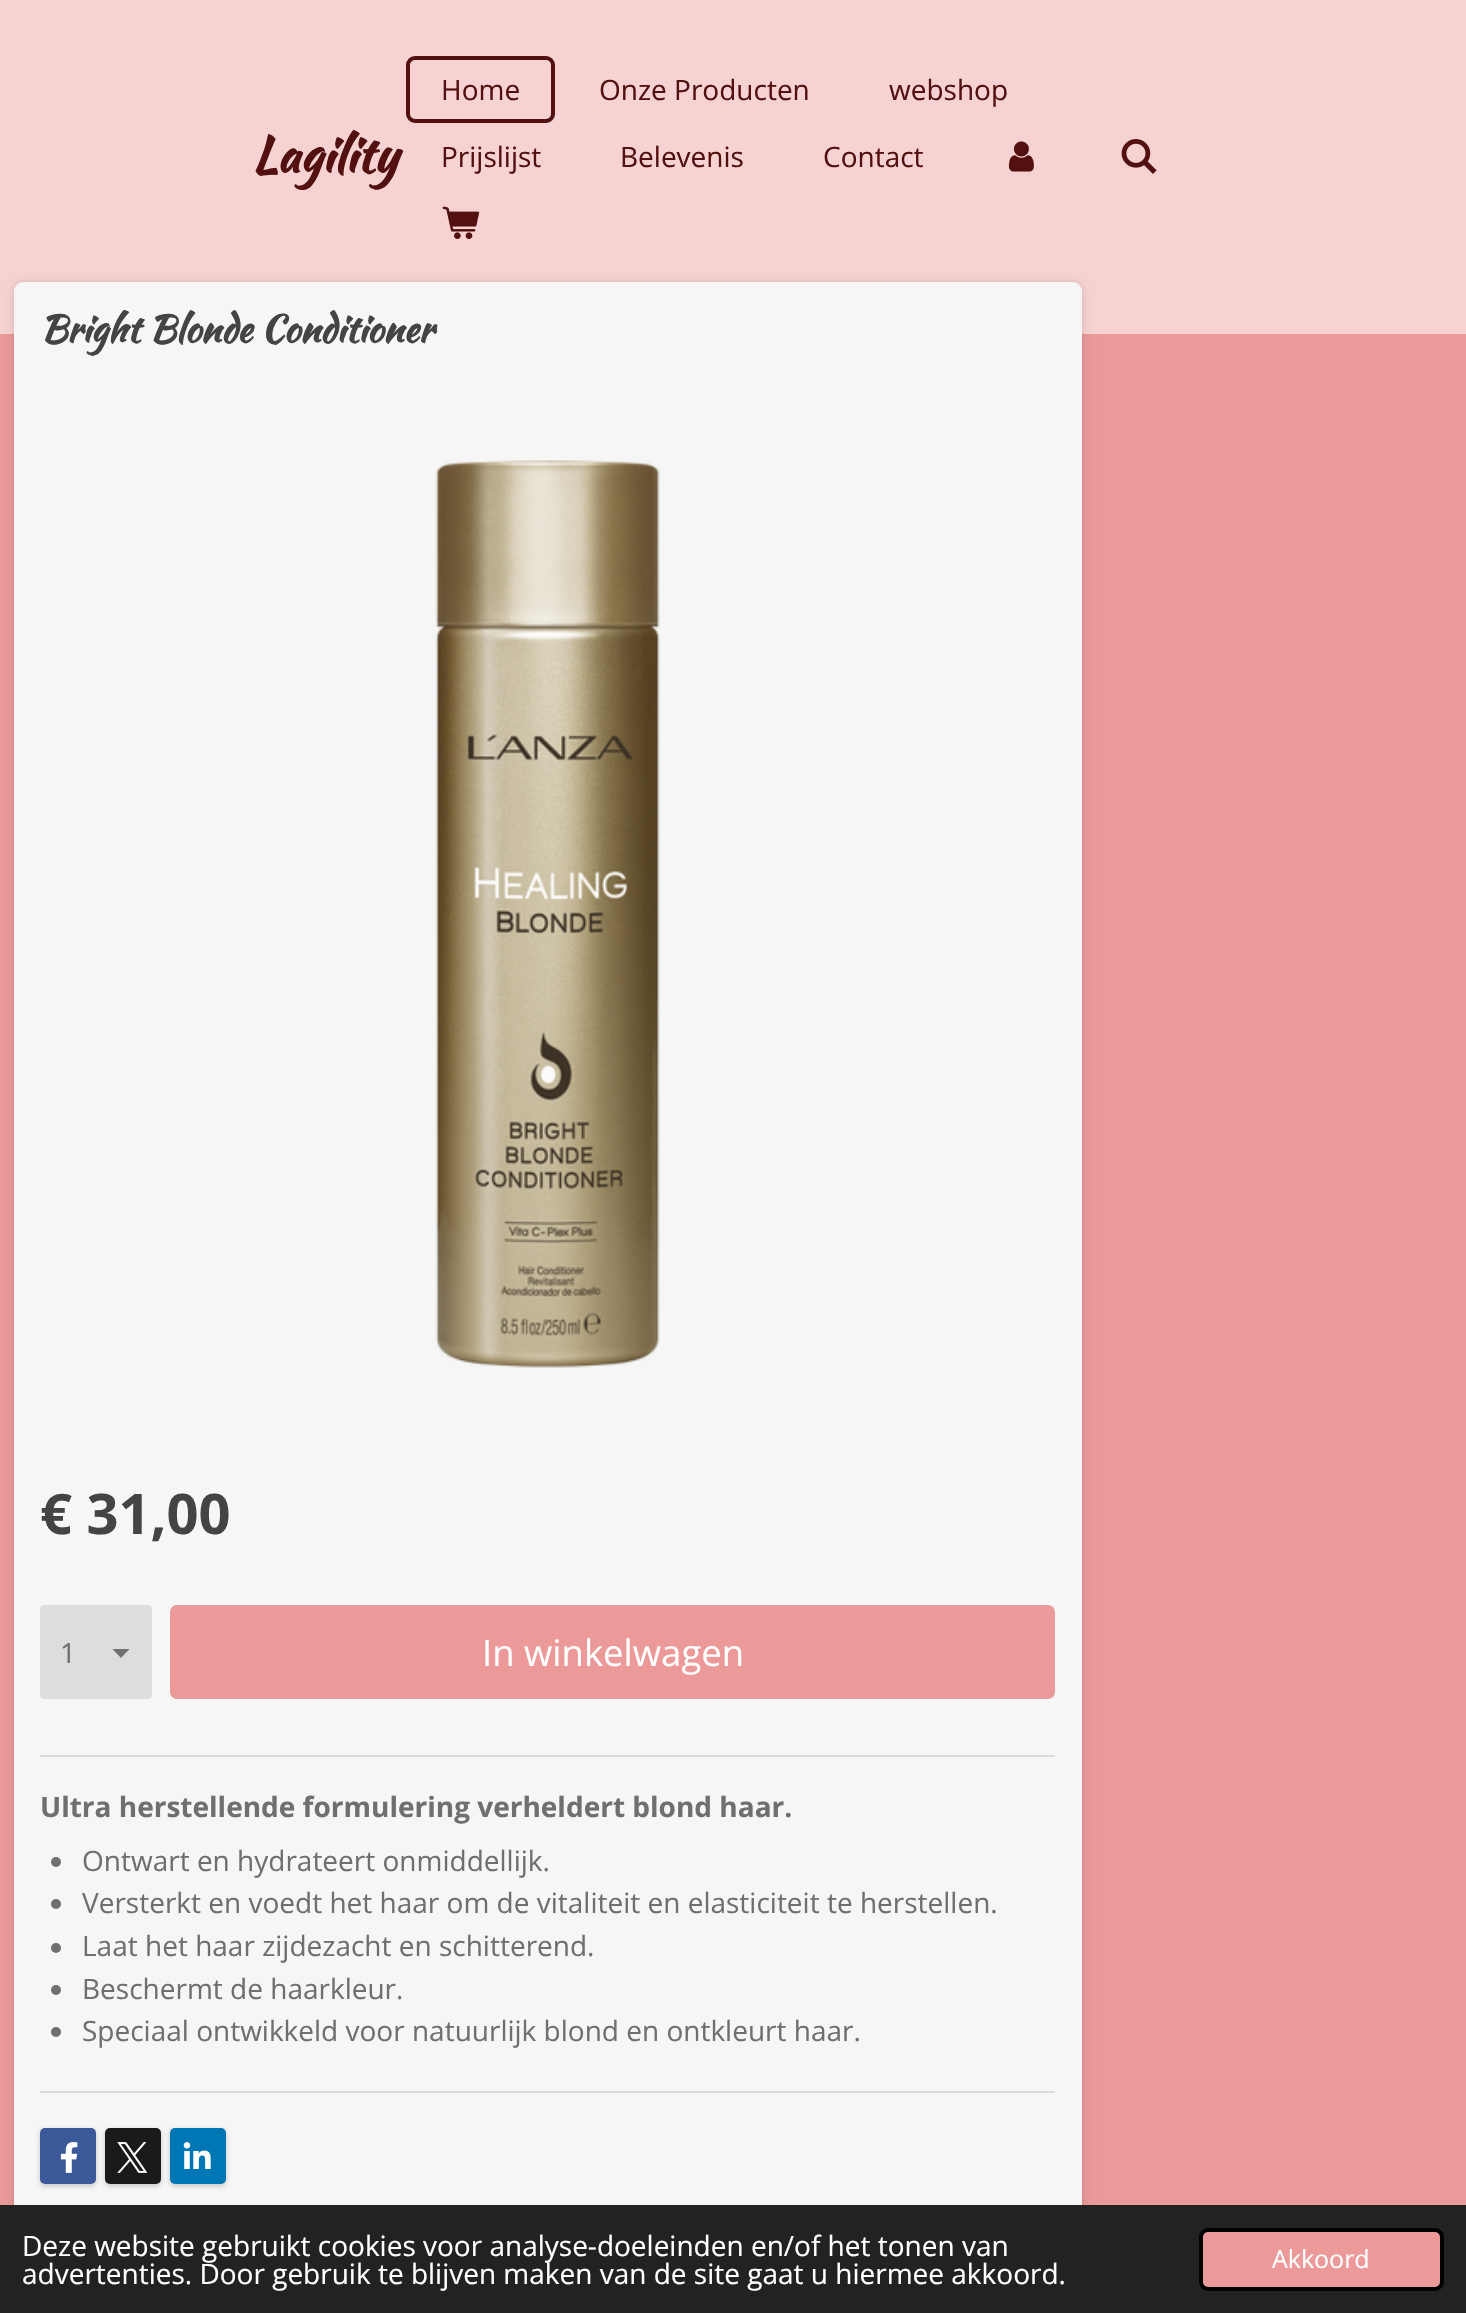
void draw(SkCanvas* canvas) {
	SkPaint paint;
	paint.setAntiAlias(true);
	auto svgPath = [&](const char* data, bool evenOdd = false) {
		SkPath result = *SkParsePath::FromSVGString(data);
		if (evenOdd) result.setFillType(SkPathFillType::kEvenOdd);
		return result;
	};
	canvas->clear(0xffeb9999);
	paint.setColor(0xfff6d2d2);
	canvas->drawRect(SkRect::MakeXYWH(0, 0, 1466, 334), paint);
	SkFont f1(fontMgr->matchFamilyStyle("Kaushan Script", SkFontStyle::Bold()), 49);
	f1.setSubpixel(true);
	paint.setColor(0xff531010);
	canvas->drawString("Lagility", 252, 172, f1, paint);
	paint.setStroke(true);
	paint.setStrokeWidth(4);
	canvas->drawRoundRect(SkRect::MakeXYWH(408, 58, 145, 63), 7, 7, paint);
	SkFont f2(fontMgr->matchFamilyStyle("Open Sans", SkFontStyle::Normal()), 28);
	f2.setSubpixel(true);
	paint.setStroke(false);
	canvas->drawString("Home", 441, 100, f2, paint);
	canvas->drawString("Onze Producten", 599, 100, f2, paint);
	canvas->drawString("webshop", 889, 100, f2, paint);
	canvas->drawString("Prijslijst", 441, 167, f2, paint);
	canvas->drawString("Belevenis", 620, 167, f2, paint);
	canvas->drawString("Contact", 823, 167, f2, paint);
	canvas->drawImageRect(SkImages::DeferredFromEncodedData(SkData::MakeFromFileName("img1.png")), SkRect::MakeXYWH(1008, 141, 26, 31), SkSamplingOptions());
	canvas->drawImageRect(SkImages::DeferredFromEncodedData(SkData::MakeFromFileName("img2.png")), SkRect::MakeXYWH(1121, 139, 36, 35), SkSamplingOptions());
	canvas->drawImageRect(SkImages::DeferredFromEncodedData(SkData::MakeFromFileName("img3.png")), SkRect::MakeXYWH(442, 206, 38, 33), SkSamplingOptions());
	paint.setColor(0x1a000000);
	paint.setMaskFilter(SkMaskFilter::MakeBlur(kNormal_SkBlurStyle, 2));
	canvas->drawRoundRect(SkRect::MakeXYWH(14, 282, 1068, 1995), 9, 9, paint);
	paint.setMaskFilter(nullptr);
	paint.setColor(0x12000000);
	paint.setMaskFilter(SkMaskFilter::MakeBlur(kNormal_SkBlurStyle, 7));
	canvas->drawRoundRect(SkRect::MakeXYWH(14, 285, 1068, 1995), 9, 9, paint);
	paint.setMaskFilter(nullptr);
	paint.setColor(0xfff6f6f6);
	canvas->drawRoundRect(SkRect::MakeXYWH(14, 282, 1068, 1995), 9, 9, paint);
	SkFont f3(fontMgr->matchFamilyStyle("Kaushan Script", SkFontStyle::Bold()), 37.25);
	f3.setSubpixel(true);
	paint.setColor(0xff444444);
	canvas->drawString("Bright Blonde Conditioner", 40, 342, f3, paint);
	canvas->drawImageRect(SkImages::DeferredFromEncodedData(SkData::MakeFromFileName("img4.png")), SkRect::MakeXYWH(435, 460, 225, 908), SkSamplingOptions());
	SkFont f4(fontMgr->matchFamilyStyle("Open Sans", SkFontStyle::Bold()), 56);
	f4.setSubpixel(true);
	canvas->drawString("€ 31,00", 40, 1534, f4, paint);
	paint.setColor(0xffdddddd);
	canvas->drawRoundRect(SkRect::MakeXYWH(40, 1605, 112, 94), 4, 4, paint);
	paint.setColor(0xff6f6f6f);
	canvas->drawPath(svgPath("M121 1658L112.5 1649H129.5Z"), paint);
	canvas->drawString("1", 60, 1663, f2, paint);
	paint.setColor(0xffeb9999);
	canvas->drawRoundRect(SkRect::MakeXYWH(170, 1605, 885, 94), 7, 7, paint);
	SkFont f5(fontMgr->matchFamilyStyle("Open Sans", SkFontStyle::Normal()), 36.5);
	f5.setSubpixel(true);
	paint.setColor(0xffffffff);
	canvas->drawString("In winkelwagen", 482, 1666, f5, paint);
	paint.setColor(0xffdbdbdb);
	canvas->drawRect(SkRect::MakeXYWH(40, 1755, 1015, 2), paint);
	SkFont f6(fontMgr->matchFamilyStyle("Open Sans", SkFontStyle::Bold()), 28);
	f6.setSubpixel(true);
	paint.setColor(0xff6f6f6f);
	canvas->drawString("Ultra herstellende formulering verheldert blond haar.", 40, 1817, f6, paint);
	canvas->drawCircle(56, 1862, 5, paint);
	canvas->drawString("Ontwart en hydrateert onmiddellijk.", 82, 1871, f2, paint);
	canvas->drawCircle(56, 1904, 5, paint);
	canvas->drawString("Versterkt en voedt het haar om de vitaliteit en elasticiteit te herstellen.", 82, 1913, f2, paint);
	canvas->drawCircle(56, 1948, 5, paint);
	canvas->drawString("Laat het haar zijdezacht en schitterend.", 82, 1956, f2, paint);
	canvas->drawCircle(56, 1990, 5, paint);
	canvas->drawString("Beschermt de haarkleur.", 82, 1999, f2, paint);
	canvas->drawCircle(56, 2032, 5, paint);
	canvas->drawString("Speciaal ontwikkeld voor natuurlijk blond en ontkleurt haar.", 82, 2041, f2, paint);
	paint.setColor(0xffdbdbdb);
	canvas->drawRect(SkRect::MakeXYWH(40, 2091, 1015, 2), paint);
	paint.setColor(0x33000000);
	paint.setMaskFilter(SkMaskFilter::MakeBlur(kNormal_SkBlurStyle, 2.5));
	canvas->drawRoundRect(SkRect::MakeXYWH(40, 2130, 56, 56), 5, 5, paint);
	paint.setMaskFilter(nullptr);
	paint.setColor(0xff3b5998);
	canvas->drawRoundRect(SkRect::MakeXYWH(40, 2128, 56, 56), 5, 5, paint);
	canvas->drawImageRect(SkImages::DeferredFromEncodedData(SkData::MakeFromFileName("img5.png")), SkRect::MakeXYWH(60, 2142, 18, 31), SkSamplingOptions());
	paint.setColor(0x33000000);
	paint.setMaskFilter(SkMaskFilter::MakeBlur(kNormal_SkBlurStyle, 2.5));
	canvas->drawRoundRect(SkRect::MakeXYWH(105, 2130, 56, 56), 5, 5, paint);
	paint.setMaskFilter(nullptr);
	paint.setColor(0xff1a1a1a);
	canvas->drawRoundRect(SkRect::MakeXYWH(105, 2128, 56, 56), 5, 5, paint);
	canvas->drawImageRect(SkImages::DeferredFromEncodedData(SkData::MakeFromFileName("img6.png")), SkRect::MakeXYWH(117, 2142, 31, 31), SkSamplingOptions());
	paint.setColor(0x33000000);
	paint.setMaskFilter(SkMaskFilter::MakeBlur(kNormal_SkBlurStyle, 2.5));
	canvas->drawRoundRect(SkRect::MakeXYWH(170, 2130, 56, 56), 5, 5, paint);
	paint.setMaskFilter(nullptr);
	paint.setColor(0xff0077b5);
	canvas->drawRoundRect(SkRect::MakeXYWH(170, 2128, 56, 56), 5, 5, paint);
	canvas->drawImageRect(SkImages::DeferredFromEncodedData(SkData::MakeFromFileName("img7.png")), SkRect::MakeXYWH(183, 2142, 28, 27), SkSamplingOptions());
	paint.setColor(0xff222222);
	canvas->drawRect(SkRect::MakeXYWH(0, 2205, 1466, 108), paint);
	paint.setColor(0xffffffff);
	canvas->drawString("Deze website gebruikt cookies voor analyse-doeleinden en/of het tonen van", 22, 2256, f2, paint);
	canvas->drawString("advertenties. Door gebruik te blijven maken van de site gaat u hiermee akkoord.", 22, 2284, f2, paint);
	paint.setColor(0xffeb9999);
	canvas->drawRoundRect(SkRect::MakeXYWH(1201, 2230, 241, 59), 7, 7, paint);
	paint.setStroke(true);
	paint.setColor(0xff000000);
	canvas->drawRoundRect(SkRect::MakeXYWH(1201, 2230, 241, 59), 7, 7, paint);
	SkFont f7(fontMgr->matchFamilyStyle("Open Sans", SkFontStyle::Normal()), 25);
	f7.setSubpixel(true);
	paint.setStroke(false);
	paint.setColor(0xffffffff);
	canvas->drawString("Akkoord", 1272, 2268, f7, paint);
}
